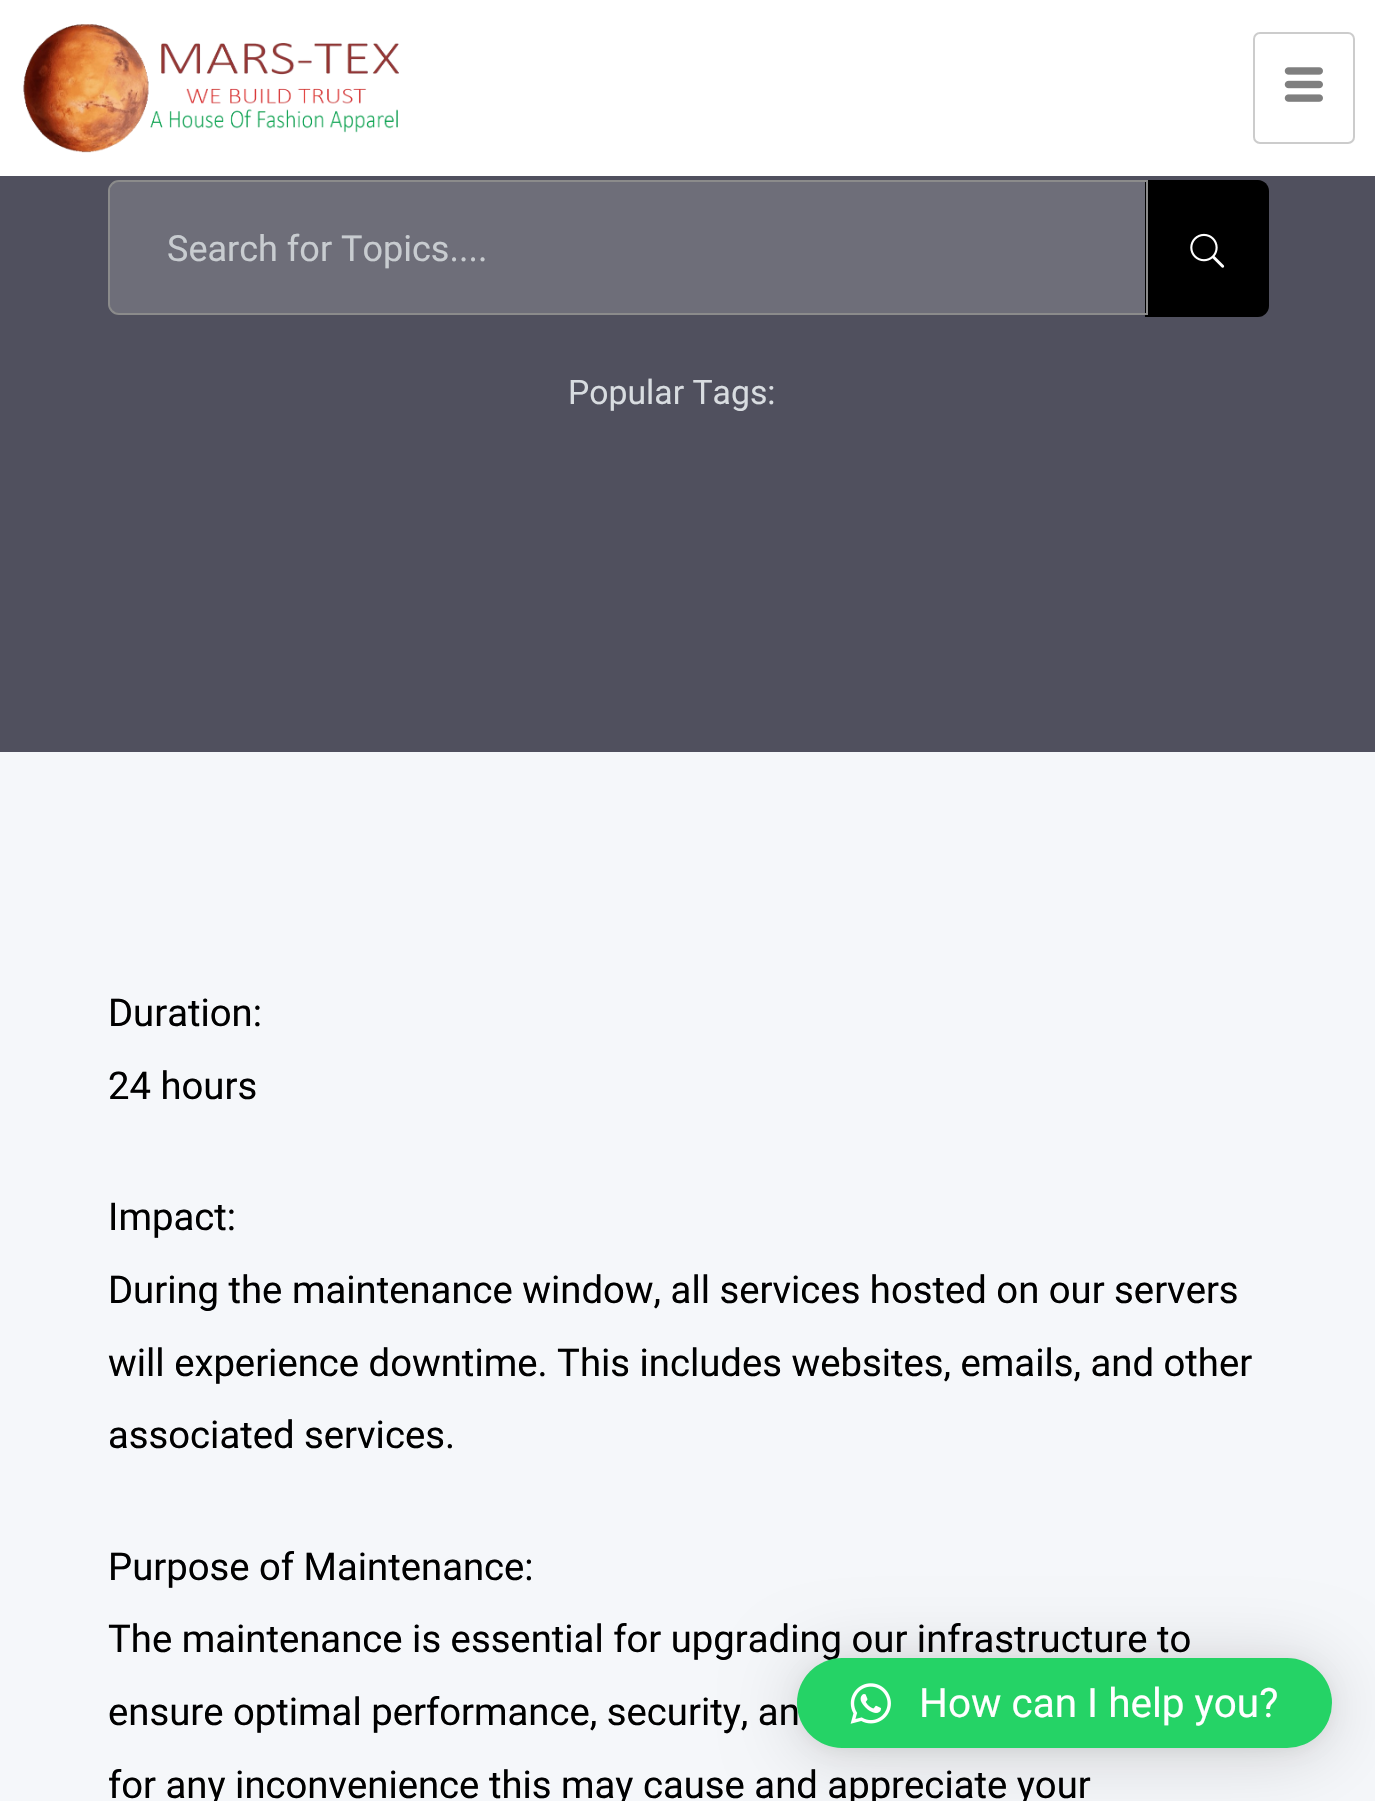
void draw(SkCanvas* canvas) {
	SkPaint paint;
	paint.setAntiAlias(true);
	auto svgPath = [&](const char* data, bool evenOdd = false) {
		SkPath result = *SkParsePath::FromSVGString(data);
		if (evenOdd) result.setFillType(SkPathFillType::kEvenOdd);
		return result;
	};
	canvas->clear(0xfff5f7fa);
	paint.setColor(0xffffffff);
	canvas->drawRect(SkRect::MakeXYWH(0, 0, 1375, 176), paint);
	canvas->drawImageRect(SkImages::DeferredFromEncodedData(SkData::MakeFromFileName("img1.png")), SkRect::MakeXYWH(23, 24, 376, 129), SkSamplingOptions());
	paint.setStroke(true);
	paint.setStrokeWidth(2);
	paint.setColor(0xffcccccc);
	canvas->drawRoundRect(SkRect::MakeXYWH(1254, 33, 100, 110), 6, 6, paint);
	canvas->drawImageRect(SkImages::DeferredFromEncodedData(SkData::MakeFromFileName("img2.png")), SkRect::MakeXYWH(1284, 67, 39, 35), SkSamplingOptions());
	paint.setStroke(false);
	paint.setColor(0xff50505e);
	canvas->drawRect(SkRect::MakeXYWH(0, 176, 1375, 576), paint);
	paint.setColor(0xff6e6e79);
	canvas->drawPath(svgPath("M119 182H1145V313H119C114 313 110 309 110 304V191C110 186 114 182 119 182Z"), paint);
	paint.setColor(0xff000000);
	canvas->drawPath(svgPath("M1145 180H1258C1264 180 1269 185 1269 191V306C1269 312 1264 317 1258 317H1145Z"), paint);
	paint.setStroke(true);
	paint.setColor(0xff8b8b8b);
	canvas->drawPath(svgPath("M119 181H1147V314H119C113.5 314 109 309.5 109 304V191C109 185.5 113.5 181 119 181Z"), paint);
	SkFont f1(fontMgr->matchFamilyStyle("Roboto", SkFontStyle::Normal()), 36);
	f1.setSubpixel(true);
	paint.setStroke(false);
	paint.setColor(0xffc8ccd0);
	canvas->drawString("Search for Topics....", 167, 261, f1, paint);
	canvas->drawImageRect(SkImages::DeferredFromEncodedData(SkData::MakeFromFileName("img3.png")), SkRect::MakeXYWH(1190, 233, 35, 35), SkSamplingOptions());
	SkFont f2(fontMgr->matchFamilyStyle("Roboto", SkFontStyle::Normal()), 33.75);
	f2.setSubpixel(true);
	paint.setColor(0xffd8dce0);
	canvas->drawString("Popular Tags:", 568, 404, f2, paint);
	SkFont f3(fontMgr->matchFamilyStyle("Roboto", SkFontStyle::Normal()), 38.25);
	f3.setSubpixel(true);
	paint.setColor(0xff000000);
	canvas->drawString("Duration:", 108, 1026, f3, paint);
	canvas->drawString("24 hours", 108, 1099, f3, paint);
	canvas->drawString("Impact:", 108, 1230, f3, paint);
	canvas->drawString("During the maintenance window, all services hosted on our servers", 108, 1303, f3, paint);
	canvas->drawString("will experience downtime. This includes websites, emails, and other", 108, 1376, f3, paint);
	canvas->drawString("associated services.", 108, 1448, f3, paint);
	canvas->drawString("Purpose of Maintenance:", 108, 1580, f3, paint);
	canvas->drawString("The maintenance is essential for upgrading our infrastructure to", 108, 1652, f3, paint);
	canvas->drawString("ensure optimal performance, security, an", 108, 1725, f3, paint);
	canvas->drawString("for any inconvenience this may cause and appreciate your", 108, 1798, f3, paint);
	paint.setColor(0x29000000);
	paint.setMaskFilter(SkMaskFilter::MakeBlur(kNormal_SkBlurStyle, 36));
	canvas->drawRoundRect(SkRect::MakeXYWH(797, 1663, 535, 90), 45, 45, paint);
	paint.setMaskFilter(nullptr);
	paint.setColor(0x0f000000);
	paint.setMaskFilter(SkMaskFilter::MakeBlur(kNormal_SkBlurStyle, 7));
	canvas->drawRoundRect(SkRect::MakeXYWH(797, 1661, 535, 90), 45, 45, paint);
	paint.setMaskFilter(nullptr);
	paint.setColor(0xff25d366);
	canvas->drawRoundRect(SkRect::MakeXYWH(797, 1658, 535, 90), 45, 45, paint);
	canvas->drawImageRect(SkImages::DeferredFromEncodedData(SkData::MakeFromFileName("img4.png")), SkRect::MakeXYWH(850, 1683, 41, 41), SkSamplingOptions());
	SkFont f4(fontMgr->matchFamilyStyle("Roboto", SkFontStyle::Normal()), 40.5);
	f4.setSubpixel(true);
	paint.setColor(0xffffffff);
	canvas->drawString("How can I help you?", 919, 1717, f4, paint);
}
